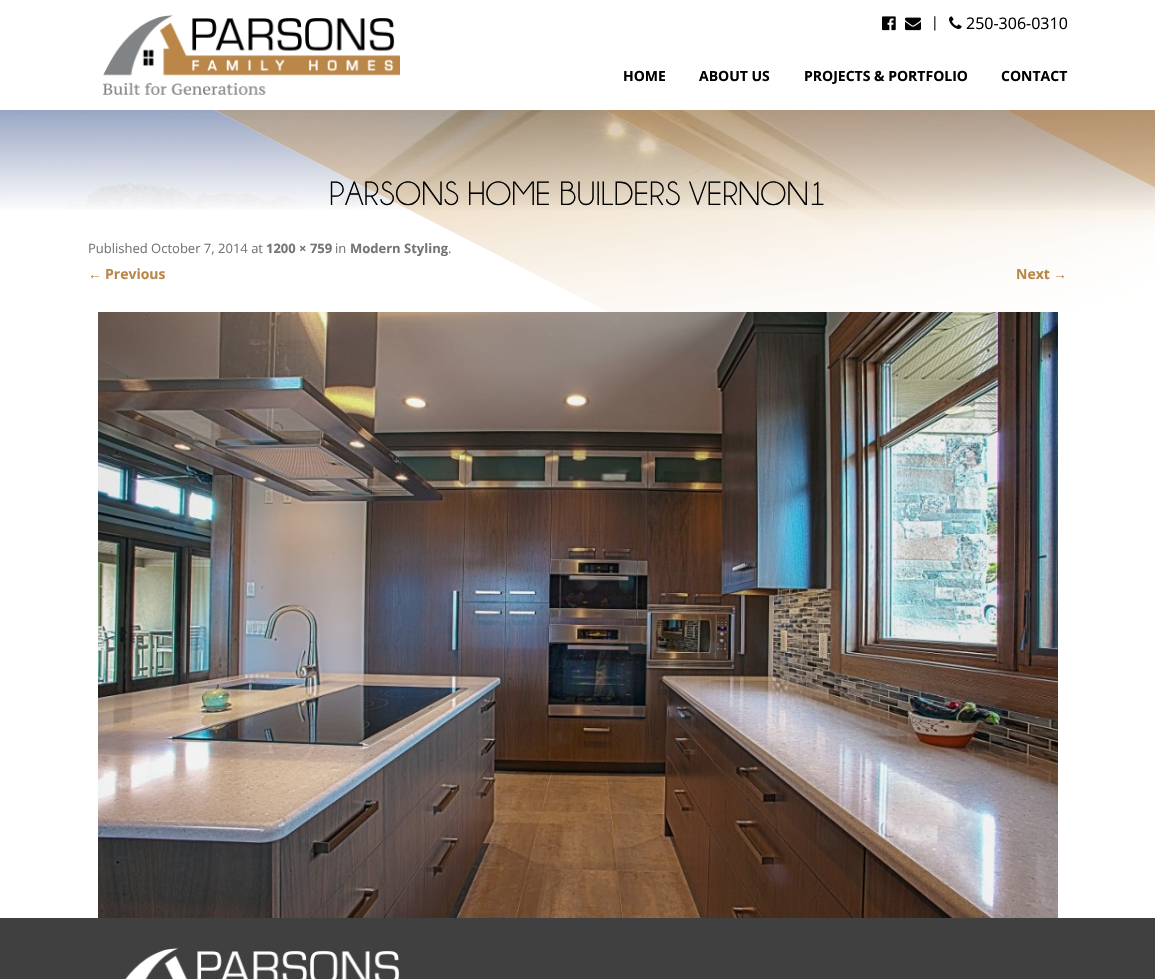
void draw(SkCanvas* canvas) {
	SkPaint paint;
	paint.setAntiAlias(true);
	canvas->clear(0xffffffff);
	canvas->drawImageRect(SkImages::DeferredFromEncodedData(SkData::MakeFromFileName("img1.png")), SkRect::MakeXYWH(0, 110, 1155, 100), SkSamplingOptions());
	canvas->drawImageRect(SkImages::DeferredFromEncodedData(SkData::MakeFromFileName("img2.png")), SkRect::MakeXYWH(103, 15, 297, 80), SkSamplingOptions());
	canvas->drawImageRect(SkImages::DeferredFromEncodedData(SkData::MakeFromFileName("img3.png")), SkRect::MakeXYWH(882, 16, 14, 15), SkSamplingOptions());
	canvas->drawImageRect(SkImages::DeferredFromEncodedData(SkData::MakeFromFileName("img4.png")), SkRect::MakeXYWH(905, 17, 16, 14), SkSamplingOptions());
	SkFont f1(fontMgr->matchFamilyStyle("Open Sans", SkFontStyle::Normal()), 14);
	f1.setSubpixel(true);
	paint.setColor(0xff000000);
	canvas->drawString("|", 931, 27, f1, paint);
	canvas->drawImageRect(SkImages::DeferredFromEncodedData(SkData::MakeFromFileName("img5.png")), SkRect::MakeXYWH(949, 16, 13, 13), SkSamplingOptions());
	SkFont f2(fontMgr->matchFamilyStyle("Open Sans", SkFontStyle::Normal()), 16);
	f2.setSubpixel(true);
	canvas->drawString("250-306-0310", 966, 29, f2, paint);
	SkFont f3(fontMgr->matchFamilyStyle("Open Sans", SkFontStyle::Bold()), 14);
	f3.setSubpixel(true);
	canvas->drawString("HOME", 623, 81, f3, paint);
	canvas->drawString("ABOUT US", 699, 81, f3, paint);
	canvas->drawString("PROJECTS & PORTFOLIO", 804, 81, f3, paint);
	canvas->drawString("CONTACT", 1001, 81, f3, paint);
	canvas->drawImageRect(SkImages::DeferredFromEncodedData(SkData::MakeFromFileName("img6.png")), SkRect::MakeXYWH(214, 110, 941, 202), SkSamplingOptions());
	SkFont f4(fontMgr->matchFamilyStyle("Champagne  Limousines", SkFontStyle::Normal()), 34);
	f4.setSubpixel(true);
	canvas->drawString("PARSONS HOME BUILDERS VERNON1", 329, 205, f4, paint);
	SkFont f5(fontMgr->matchFamilyStyle("Open Sans", SkFontStyle::Normal()), 13);
	f5.setSubpixel(true);
	paint.setColor(0xff757575);
	canvas->drawString("Published October 7, 2014 at", 88, 253, f5, paint);
	SkFont f6(fontMgr->matchFamilyStyle("Open Sans", SkFontStyle::Bold()), 13);
	f6.setSubpixel(true);
	canvas->drawString("1200 × 759", 266, 253, f6, paint);
	canvas->drawString("in", 335, 253, f5, paint);
	canvas->drawString("Modern Styling", 350, 253, f6, paint);
	canvas->drawString(".", 448, 253, f5, paint);
	SkFont f7(fontMgr->matchFamilyStyle("Liberation Sans", SkFontStyle::Bold()), 14);
	f7.setSubpixel(true);
	paint.setColor(0xffba8749);
	canvas->drawString("←", 88, 279, f7, paint);
	canvas->drawString("Previous", 105, 279, f3, paint);
	canvas->drawString("Next", 1016, 279, f3, paint);
	canvas->drawString("→", 1053, 279, f7, paint);
	canvas->drawImageRect(SkImages::DeferredFromEncodedData(SkData::MakeFromFileName("img7.png")), SkRect::MakeXYWH(98, 312, 960, 606), SkSamplingOptions());
	paint.setColor(0xff404041);
	canvas->drawRect(SkRect::MakeXYWH(0, 918, 1155, 61), paint);
	canvas->drawImageRect(SkImages::DeferredFromEncodedData(SkData::MakeFromFileName("img8.png")), SkRect::MakeXYWH(125, 948, 275, 31), SkSamplingOptions());
}
